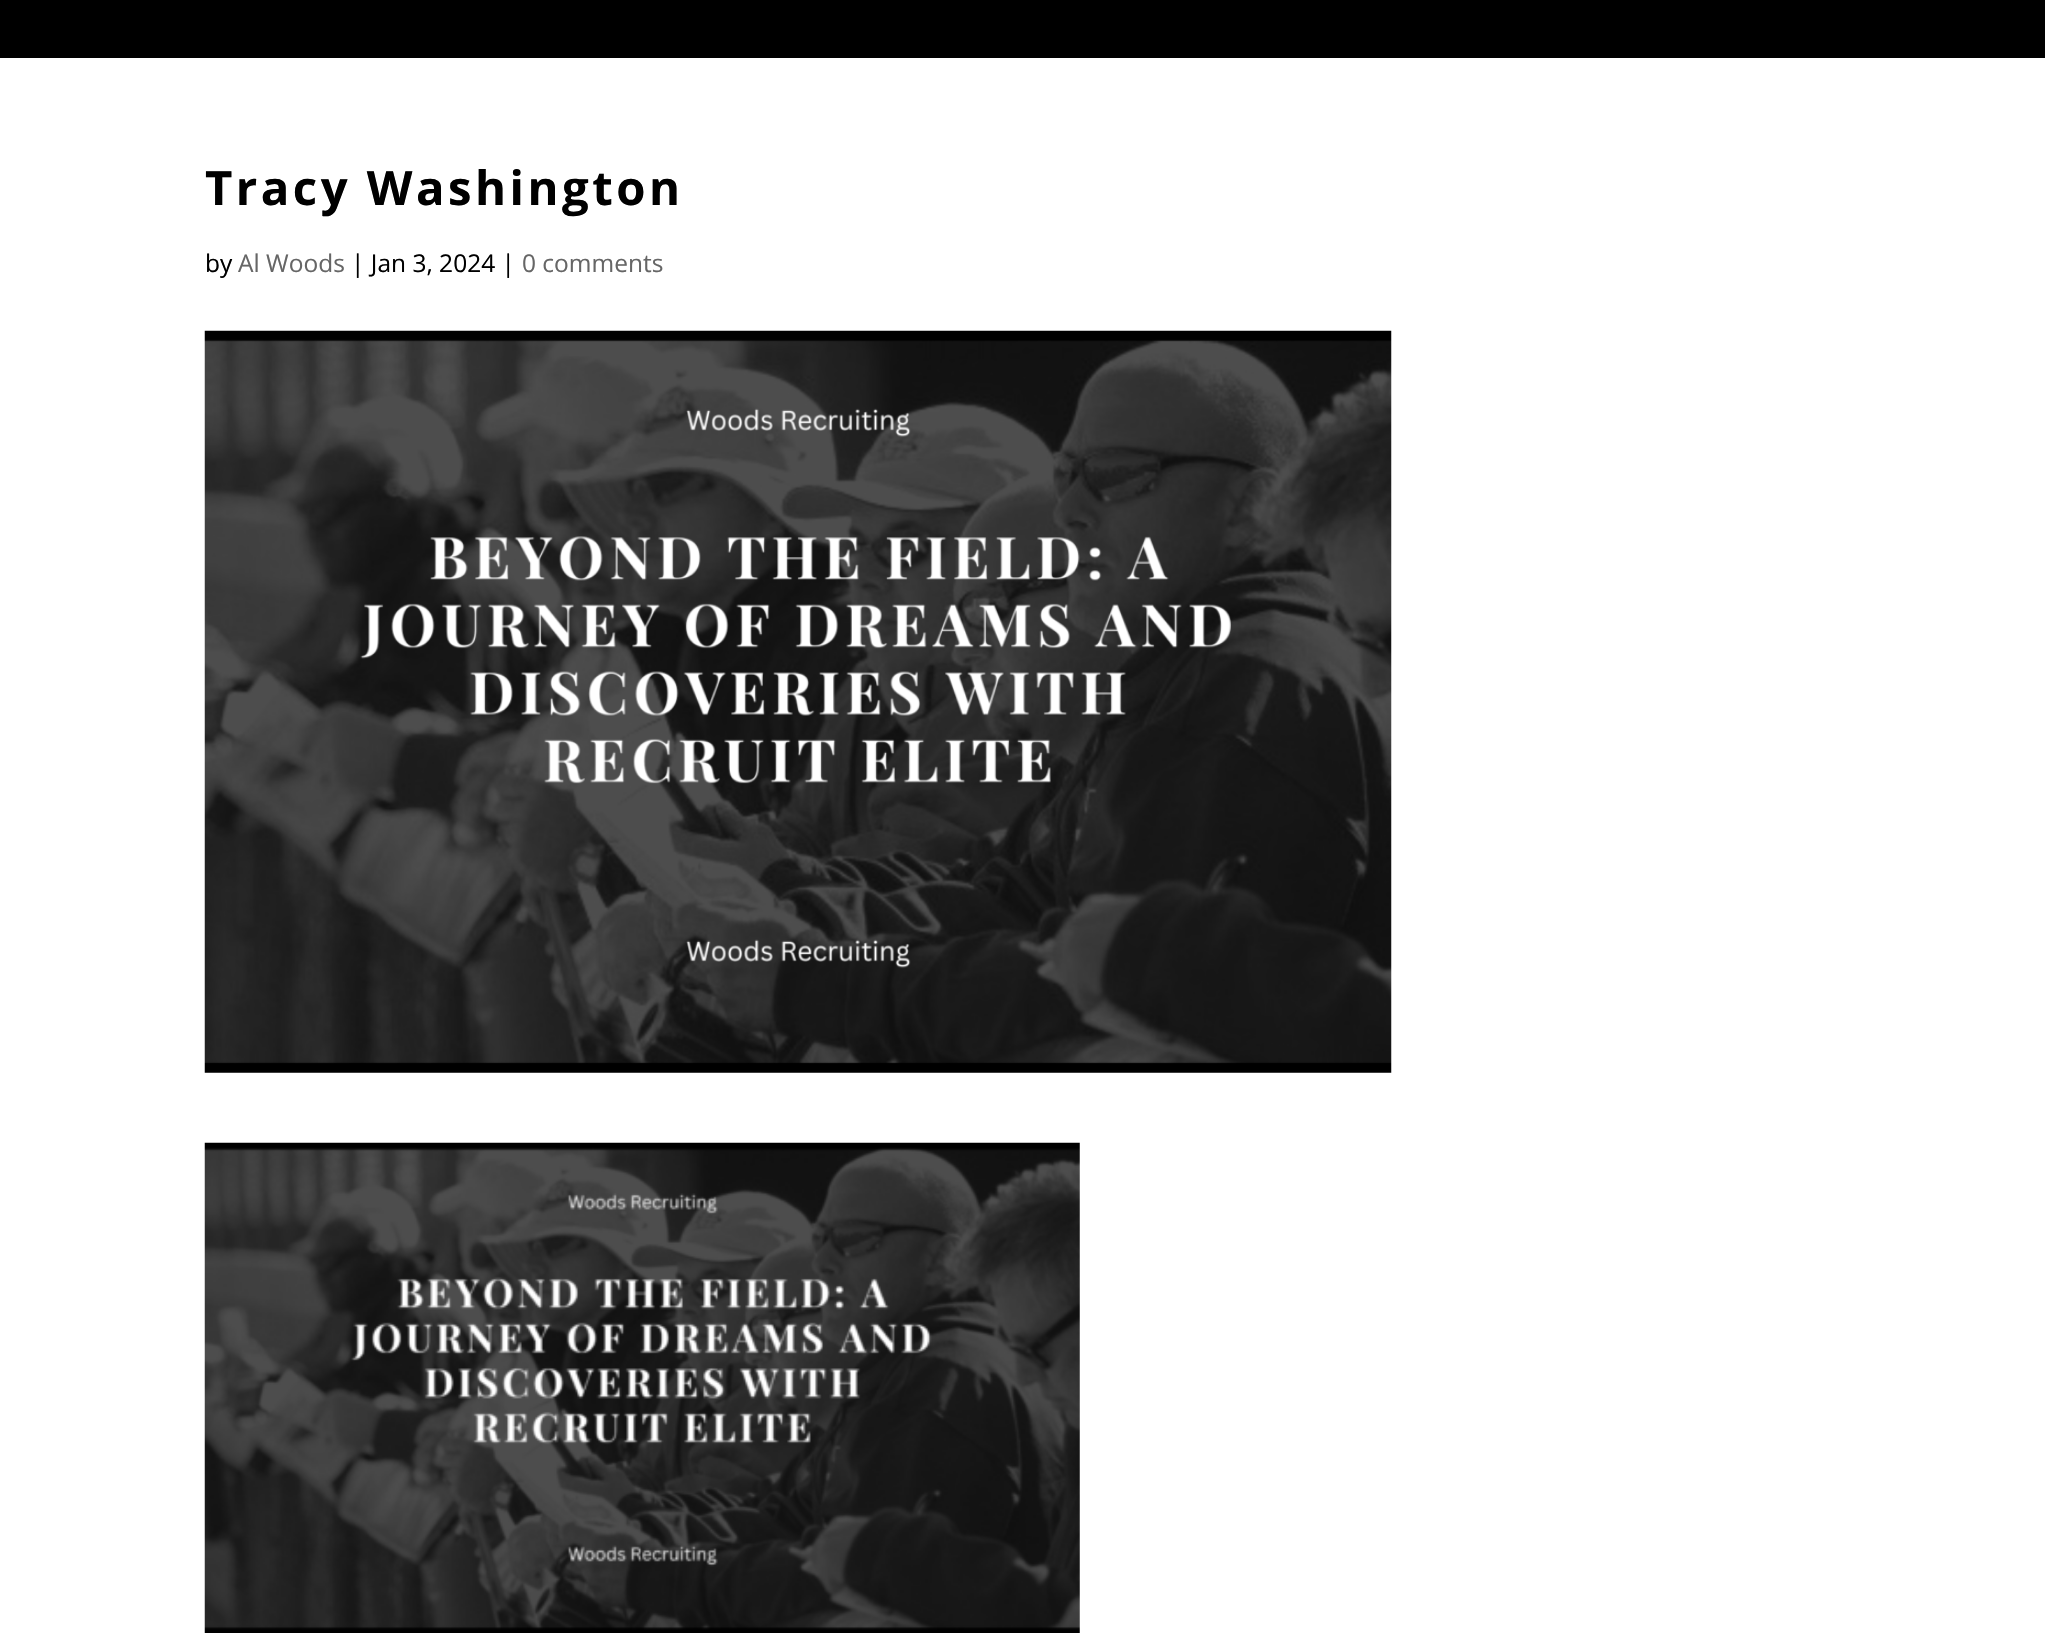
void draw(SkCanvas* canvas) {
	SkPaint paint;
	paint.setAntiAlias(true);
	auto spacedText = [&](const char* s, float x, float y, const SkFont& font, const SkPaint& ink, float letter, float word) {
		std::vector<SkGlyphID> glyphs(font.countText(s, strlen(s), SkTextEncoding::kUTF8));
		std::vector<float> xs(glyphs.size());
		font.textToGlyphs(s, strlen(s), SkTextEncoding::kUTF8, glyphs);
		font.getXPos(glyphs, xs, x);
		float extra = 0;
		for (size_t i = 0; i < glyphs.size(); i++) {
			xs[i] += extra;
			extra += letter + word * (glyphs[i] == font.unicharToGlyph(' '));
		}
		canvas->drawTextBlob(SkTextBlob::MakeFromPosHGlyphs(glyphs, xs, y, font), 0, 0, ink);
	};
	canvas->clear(0xff000000);
	paint.setColor(0xffffffff);
	canvas->drawRect(SkRect::MakeXYWH(0, 58, 2045, 1575), paint);
	SkFont f1(fontMgr->matchFamilyStyle("Open Sans", SkFontStyle::Bold()), 47.25);
	f1.setSubpixel(true);
	paint.setColor(0xff000000);
	spacedText("Tracy Washington", 205, 205, f1, paint, 3.5, 0);
	SkFont f2(fontMgr->matchFamilyStyle("Open Sans", SkFontStyle::Normal()), 24.5);
	f2.setSubpixel(true);
	canvas->drawString("by", 205, 272, f2, paint);
	paint.setColor(0xff666666);
	canvas->drawString("Al Woods", 238, 272, f2, paint);
	paint.setColor(0xff000000);
	canvas->drawString("| Jan 3, 2024 |", 351, 272, f2, paint);
	paint.setColor(0xff666666);
	canvas->drawString("0 comments", 522, 272, f2, paint);
	canvas->drawImageRect(SkImages::DeferredFromEncodedData(SkData::MakeFromFileName("img1.png")), SkRect::MakeXYWH(204, 330, 1188, 743), SkSamplingOptions());
	canvas->drawImageRect(SkImages::DeferredFromEncodedData(SkData::MakeFromFileName("img2.png")), SkRect::MakeXYWH(204, 1142, 876, 491), SkSamplingOptions());
}
